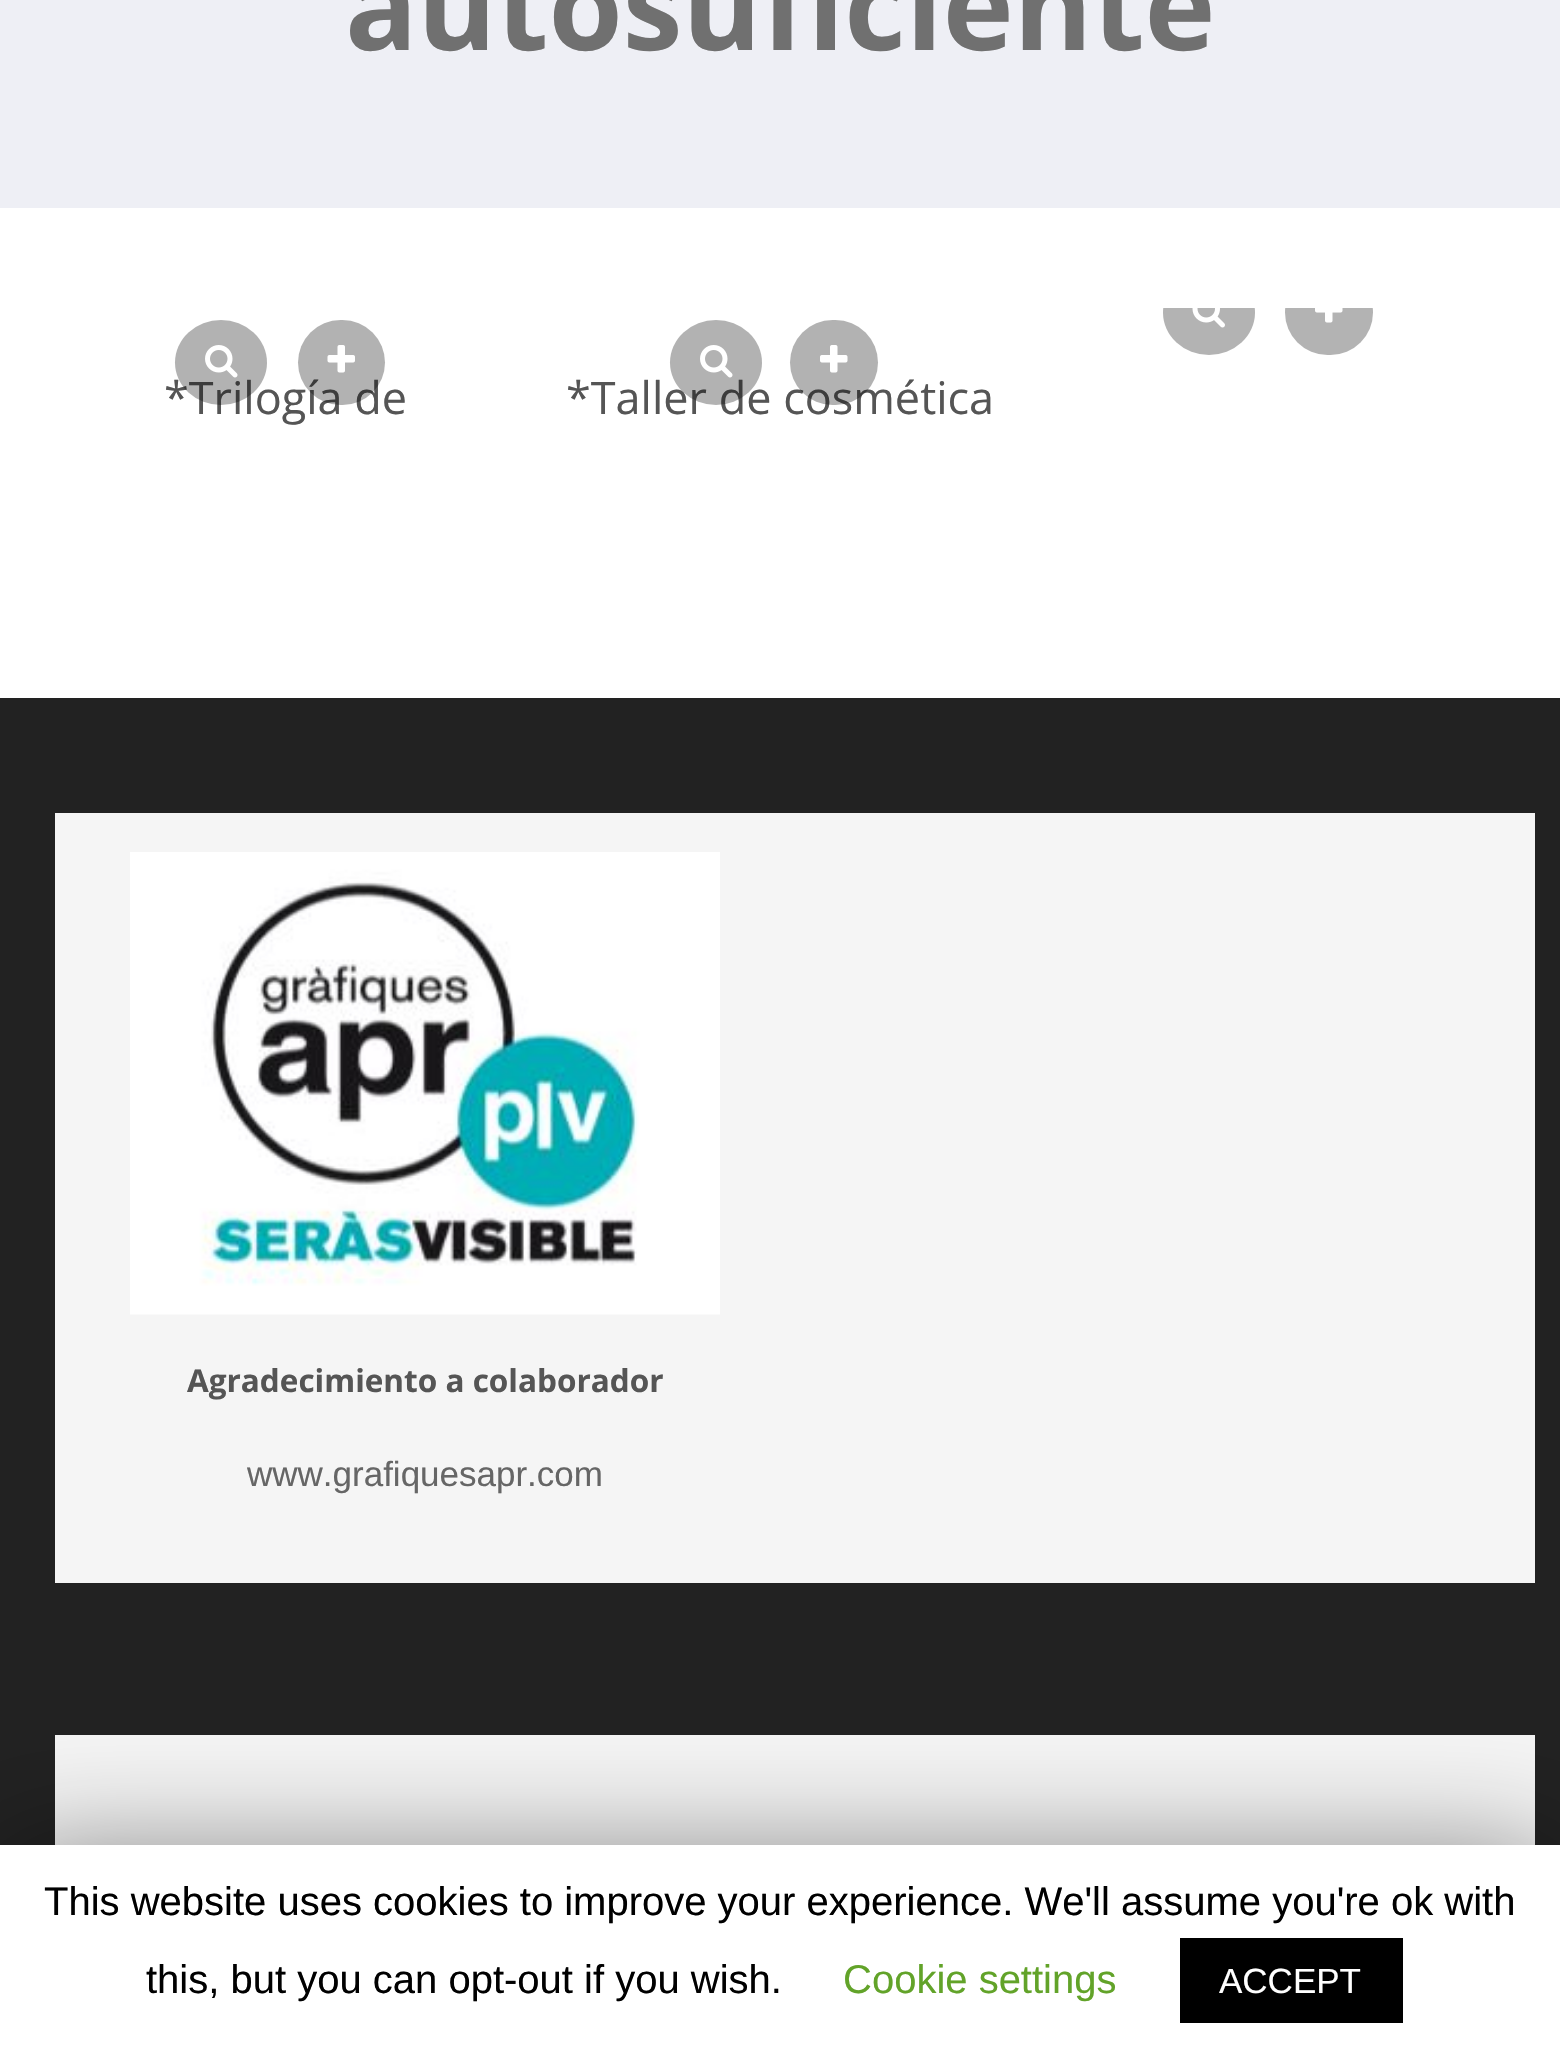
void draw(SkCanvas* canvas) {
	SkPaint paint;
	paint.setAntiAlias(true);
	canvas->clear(0xffffffff);
	paint.setColor(0xffeeeff5);
	canvas->drawRect(SkRect::MakeXYWH(0, 0, 1560, 208), paint);
	SkFont f1(fontMgr->matchFamilyStyle("Open Sans", SkFontStyle::Bold()), 120);
	f1.setSubpixel(true);
	paint.setColor(0xff707070);
	canvas->drawString("autosuficiente", 345, 50, f1, paint);
	canvas->save();
	canvas->clipRect(SkRect::MakeXYWH(1028, 308, 492, 70));
	paint.setColor(0xffb3b3b3);
	canvas->drawOval(SkRect::MakeXYWH(1163, 270, 92, 85), paint);
	canvas->restore();
	canvas->drawImageRect(SkImages::DeferredFromEncodedData(SkData::MakeFromFileName("img1.png")), SkRect::MakeXYWH(1192, 308, 33, 20), SkSamplingOptions());
	canvas->save();
	canvas->clipRect(SkRect::MakeXYWH(1028, 308, 492, 70));
	canvas->drawRoundRect(SkRect::MakeXYWH(1285, 270, 88, 85), 42.5, 42.5, paint);
	canvas->restore();
	canvas->drawImageRect(SkImages::DeferredFromEncodedData(SkData::MakeFromFileName("img2.png")), SkRect::MakeXYWH(1315, 308, 28, 15), SkSamplingOptions());
	SkFont f2(fontMgr->matchFamilyStyle("Open Sans", SkFontStyle::Normal()), 45);
	f2.setSubpixel(true);
	paint.setColor(0xff555555);
	canvas->drawString("*Trilogía de", 164, 414, f2, paint);
	paint.setColor(0x4d000000);
	canvas->drawOval(SkRect::MakeXYWH(175, 320, 92, 85), paint);
	canvas->drawImageRect(SkImages::DeferredFromEncodedData(SkData::MakeFromFileName("img3.png")), SkRect::MakeXYWH(205, 345, 33, 33), SkSamplingOptions());
	canvas->drawRoundRect(SkRect::MakeXYWH(298, 320, 87, 85), 42.5, 42.5, paint);
	canvas->drawImageRect(SkImages::DeferredFromEncodedData(SkData::MakeFromFileName("img4.png")), SkRect::MakeXYWH(327, 345, 28, 28), SkSamplingOptions());
	paint.setColor(0xff555555);
	canvas->drawString("*Taller de cosmética", 566, 414, f2, paint);
	paint.setColor(0x4d000000);
	canvas->drawOval(SkRect::MakeXYWH(670, 320, 92, 85), paint);
	canvas->drawImageRect(SkImages::DeferredFromEncodedData(SkData::MakeFromFileName("img3.png")), SkRect::MakeXYWH(700, 345, 33, 33), SkSamplingOptions());
	canvas->drawRoundRect(SkRect::MakeXYWH(790, 320, 88, 85), 42.5, 42.5, paint);
	canvas->drawImageRect(SkImages::DeferredFromEncodedData(SkData::MakeFromFileName("img5.png")), SkRect::MakeXYWH(820, 345, 28, 28), SkSamplingOptions());
	paint.setColor(0xff222222);
	canvas->drawRect(SkRect::MakeXYWH(0, 698, 1560, 1147), paint);
	paint.setColor(0xfff5f5f5);
	canvas->drawRect(SkRect::MakeXYWH(55, 813, 1480, 770), paint);
	canvas->drawImageRect(SkImages::DeferredFromEncodedData(SkData::MakeFromFileName("img6.png")), SkRect::MakeXYWH(130, 852, 590, 463), SkSamplingOptions());
	SkFont f3(fontMgr->matchFamilyStyle("Open Sans", SkFontStyle::Bold()), 31.5);
	f3.setSubpixel(true);
	paint.setColor(0xff555555);
	canvas->drawString("Agradecimiento a colaborador", 187, 1392, f3, paint);
	SkFont f4(fontMgr->matchFamilyStyle("Liberation Sans", SkFontStyle::Normal()), 35);
	f4.setSubpixel(true);
	paint.setColor(0xff666666);
	canvas->drawString("www.grafiquesapr.com", 247, 1486, f4, paint);
	paint.setColor(0xfff5f5f5);
	canvas->drawRect(SkRect::MakeXYWH(55, 1735, 1480, 110), paint);
	paint.setColor(0x80000000);
	paint.setMaskFilter(SkMaskFilter::MakeBlur(kNormal_SkBlurStyle, 62.5));
	canvas->drawRect(SkRect::MakeXYWH(0, 1858, 1560, 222), paint);
	paint.setMaskFilter(nullptr);
	paint.setColor(0xffffffff);
	canvas->drawRect(SkRect::MakeXYWH(0, 1845, 1560, 222), paint);
	SkFont f5(fontMgr->matchFamilyStyle("Liberation Sans", SkFontStyle::Normal()), 40);
	f5.setSubpixel(true);
	paint.setColor(0xff000000);
	canvas->drawString("This website uses cookies to improve your experience. We'll assume you're ok with", 44, 1915, f5, paint);
	canvas->drawString("this, but you can opt-out if you wish.", 146, 1993, f5, paint);
	paint.setColor(0xff62a329);
	canvas->drawString("Cookie settings", 843, 1993, f5, paint);
	paint.setColor(0xff000000);
	canvas->drawRect(SkRect::MakeXYWH(1180, 1938, 223, 85), paint);
	paint.setColor(0xffffffff);
	canvas->drawString("ACCEPT", 1219, 1993, f4, paint);
}
